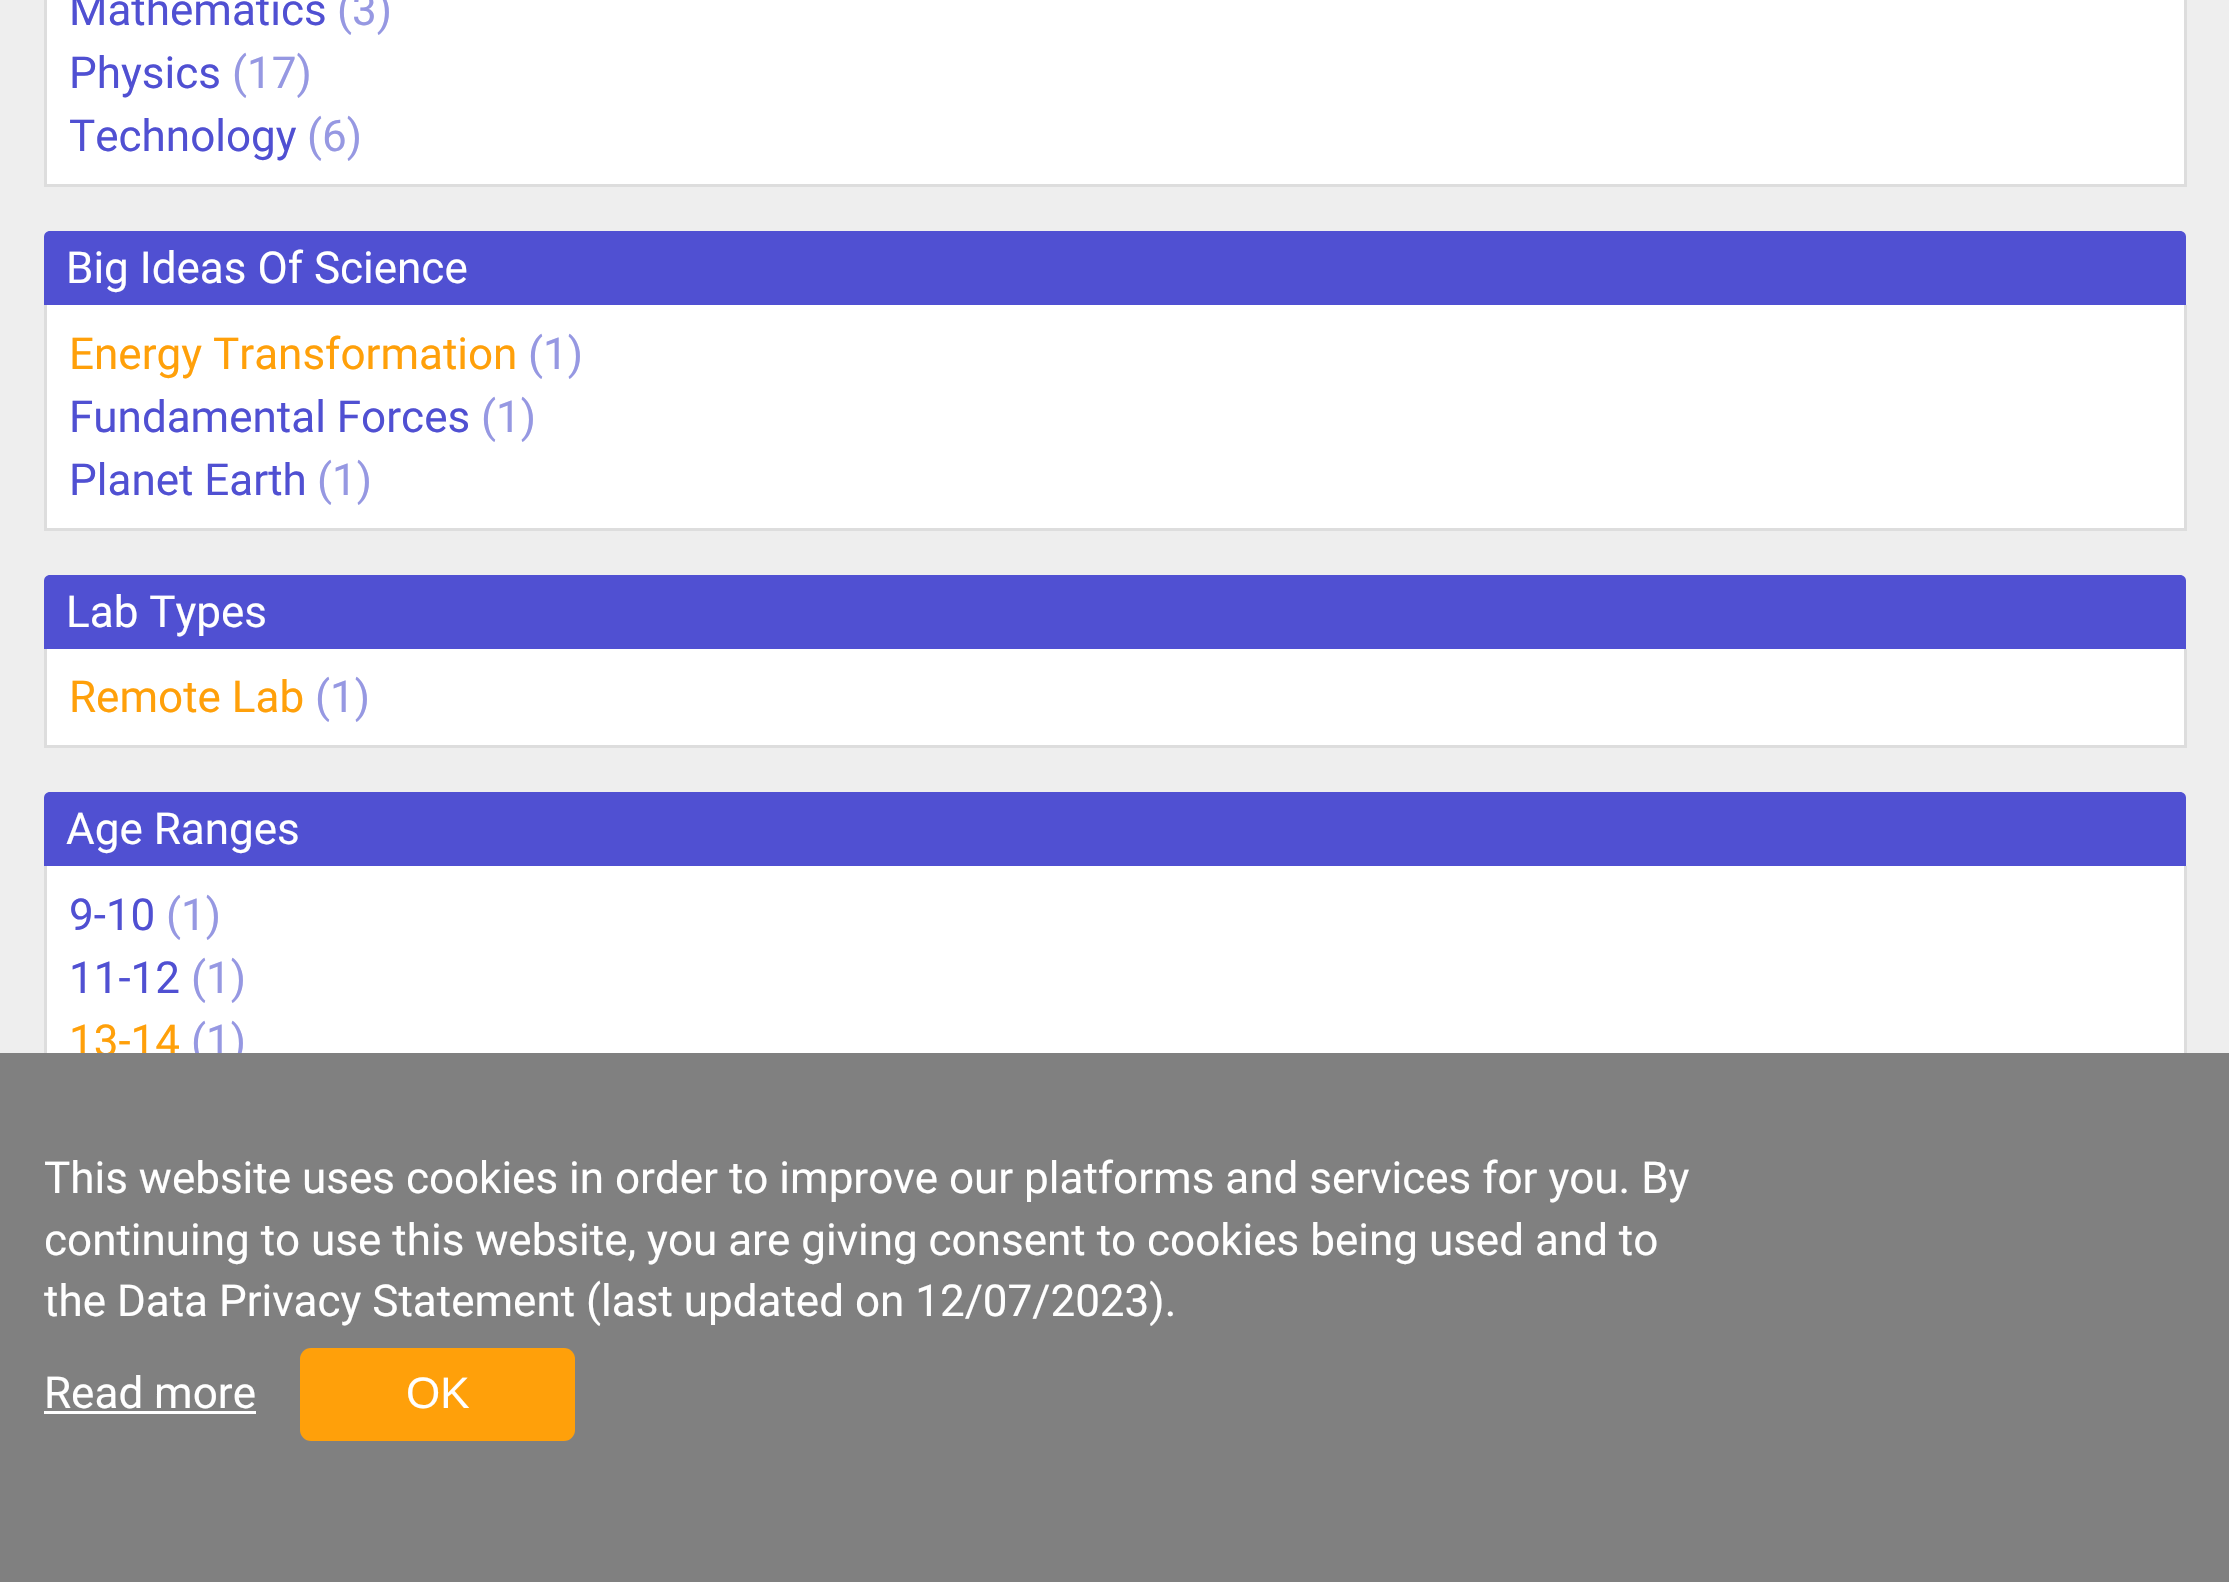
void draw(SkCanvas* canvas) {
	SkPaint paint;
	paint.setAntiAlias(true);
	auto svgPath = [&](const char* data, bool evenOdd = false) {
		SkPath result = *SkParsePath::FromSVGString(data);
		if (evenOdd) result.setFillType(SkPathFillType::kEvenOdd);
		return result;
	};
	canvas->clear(0xffeeeeee);
	paint.setColor(0xffffffff);
	canvas->drawRect(SkRect::MakeXYWH(47, 0, 2137, 184), paint);
	paint.setColor(0xffdddddd);
	canvas->drawRect(SkRect::MakeXYWH(2184, 0, 3, 187), paint);
	canvas->drawRect(SkRect::MakeXYWH(44, 184, 2142, 3), paint);
	canvas->drawRect(SkRect::MakeXYWH(44, 0, 3, 187), paint);
	SkFont f1(fontMgr->matchFamilyStyle("Roboto", SkFontStyle::Normal()), 44);
	f1.setSubpixel(true);
	paint.setColor(0xff5050d2);
	canvas->drawString("Mathematics", 69, 25, f1, paint);
	paint.setColor(0xff9698e2);
	canvas->drawString("(3)", 337, 25, f1, paint);
	paint.setColor(0xff5050d2);
	canvas->drawString("Physics", 69, 88, f1, paint);
	paint.setColor(0xff9698e2);
	canvas->drawString("(17)", 232, 88, f1, paint);
	paint.setColor(0xff5050d2);
	canvas->drawString("Technology", 69, 151, f1, paint);
	paint.setColor(0xff9698e2);
	canvas->drawString("(6)", 307, 151, f1, paint);
	paint.setColor(0xffffffff);
	canvas->drawPath(svgPath("M50 231H2180C2183.5 231 2186 233.5 2186 237V531H44V237C44 233.5 46.5 231 50 231Z"), paint);
	paint.setColor(0xff5050d2);
	canvas->drawPath(svgPath("M50 231H2180C2183.5 231 2186 233.5 2186 237V305H44V237C44 233.5 46.5 231 50 231Z"), paint);
	paint.setColor(0xffffffff);
	canvas->drawString("Big Ideas Of Science", 66, 283, f1, paint);
	paint.setColor(0xffdddddd);
	canvas->drawRect(SkRect::MakeXYWH(2184, 305, 3, 226), paint);
	canvas->drawRect(SkRect::MakeXYWH(44, 528, 2142, 3), paint);
	canvas->drawRect(SkRect::MakeXYWH(44, 305, 3, 226), paint);
	paint.setColor(0xffffa00a);
	canvas->drawString("Energy Transformation", 69, 369, f1, paint);
	paint.setColor(0xff9698e2);
	canvas->drawString("(1)", 528, 369, f1, paint);
	paint.setColor(0xff5050d2);
	canvas->drawString("Fundamental Forces", 69, 432, f1, paint);
	paint.setColor(0xff9698e2);
	canvas->drawString("(1)", 481, 432, f1, paint);
	paint.setColor(0xff5050d2);
	canvas->drawString("Planet Earth", 69, 495, f1, paint);
	paint.setColor(0xff9698e2);
	canvas->drawString("(1)", 317, 495, f1, paint);
	paint.setColor(0xffffffff);
	canvas->drawPath(svgPath("M50 575H2180C2183.5 575 2186 577.5 2186 581V748H44V581C44 577.5 46.5 575 50 575Z"), paint);
	paint.setColor(0xff5050d2);
	canvas->drawPath(svgPath("M50 575H2180C2183.5 575 2186 577.5 2186 581V649H44V581C44 577.5 46.5 575 50 575Z"), paint);
	paint.setColor(0xffffffff);
	canvas->drawString("Lab Types", 66, 627, f1, paint);
	paint.setColor(0xffdddddd);
	canvas->drawRect(SkRect::MakeXYWH(2184, 649, 3, 99), paint);
	canvas->drawRect(SkRect::MakeXYWH(44, 745, 2142, 3), paint);
	canvas->drawRect(SkRect::MakeXYWH(44, 649, 3, 99), paint);
	paint.setColor(0xffffa00a);
	canvas->drawString("Remote Lab", 69, 712, f1, paint);
	paint.setColor(0xff9698e2);
	canvas->drawString("(1)", 315, 712, f1, paint);
	paint.setColor(0xffffffff);
	canvas->drawPath(svgPath("M50 792H2180C2183.5 792 2186 794.5 2186 798V1155H44V798C44 794.5 46.5 792 50 792Z"), paint);
	paint.setColor(0xff5050d2);
	canvas->drawPath(svgPath("M50 792H2180C2183.5 792 2186 794.5 2186 798V866H44V798C44 794.5 46.5 792 50 792Z"), paint);
	paint.setColor(0xffffffff);
	canvas->drawString("Age Ranges", 66, 844, f1, paint);
	paint.setColor(0xffdddddd);
	canvas->drawRect(SkRect::MakeXYWH(2184, 866, 3, 187), paint);
	canvas->drawRect(SkRect::MakeXYWH(44, 866, 3, 187), paint);
	paint.setColor(0xff5050d2);
	canvas->drawString("9-10", 69, 930, f1, paint);
	paint.setColor(0xff9698e2);
	canvas->drawString("(1)", 166, 930, f1, paint);
	paint.setColor(0xff5050d2);
	canvas->drawString("11-12", 69, 993, f1, paint);
	paint.setColor(0xff9698e2);
	canvas->drawString("(1)", 191, 993, f1, paint);
	paint.setColor(0xffffa00a);
	canvas->drawString("13-14", 69, 1056, f1, paint);
	paint.setColor(0xff9698e2);
	canvas->drawString("(1)", 191, 1056, f1, paint);
	paint.setColor(0xff808080);
	canvas->drawRect(SkRect::MakeXYWH(0, 1053, 2229, 529), paint);
	paint.setColor(0xffffffff);
	canvas->drawString("This website uses cookies in order to improve our platforms and services for you. By", 44, 1193, f1, paint);
	canvas->drawString("continuing to use this website, you are giving consent to cookies being used and to", 44, 1255, f1, paint);
	canvas->drawString("the Data Privacy Statement (last updated on 12/07/2023).", 44, 1316, f1, paint);
	canvas->drawString("Read more", 44, 1408, f1, paint);
	canvas->drawRect(SkRect::MakeXYWH(44, 1411, 212, 3), paint);
	paint.setColor(0xffffa00a);
	canvas->drawRoundRect(SkRect::MakeXYWH(300, 1348, 275, 93), 11, 11, paint);
	SkFont f2(fontMgr->matchFamilyStyle("Liberation Sans", SkFontStyle::Normal()), 44);
	f2.setSubpixel(true);
	paint.setColor(0xffffffff);
	canvas->drawString("OK", 406, 1408, f2, paint);
}
